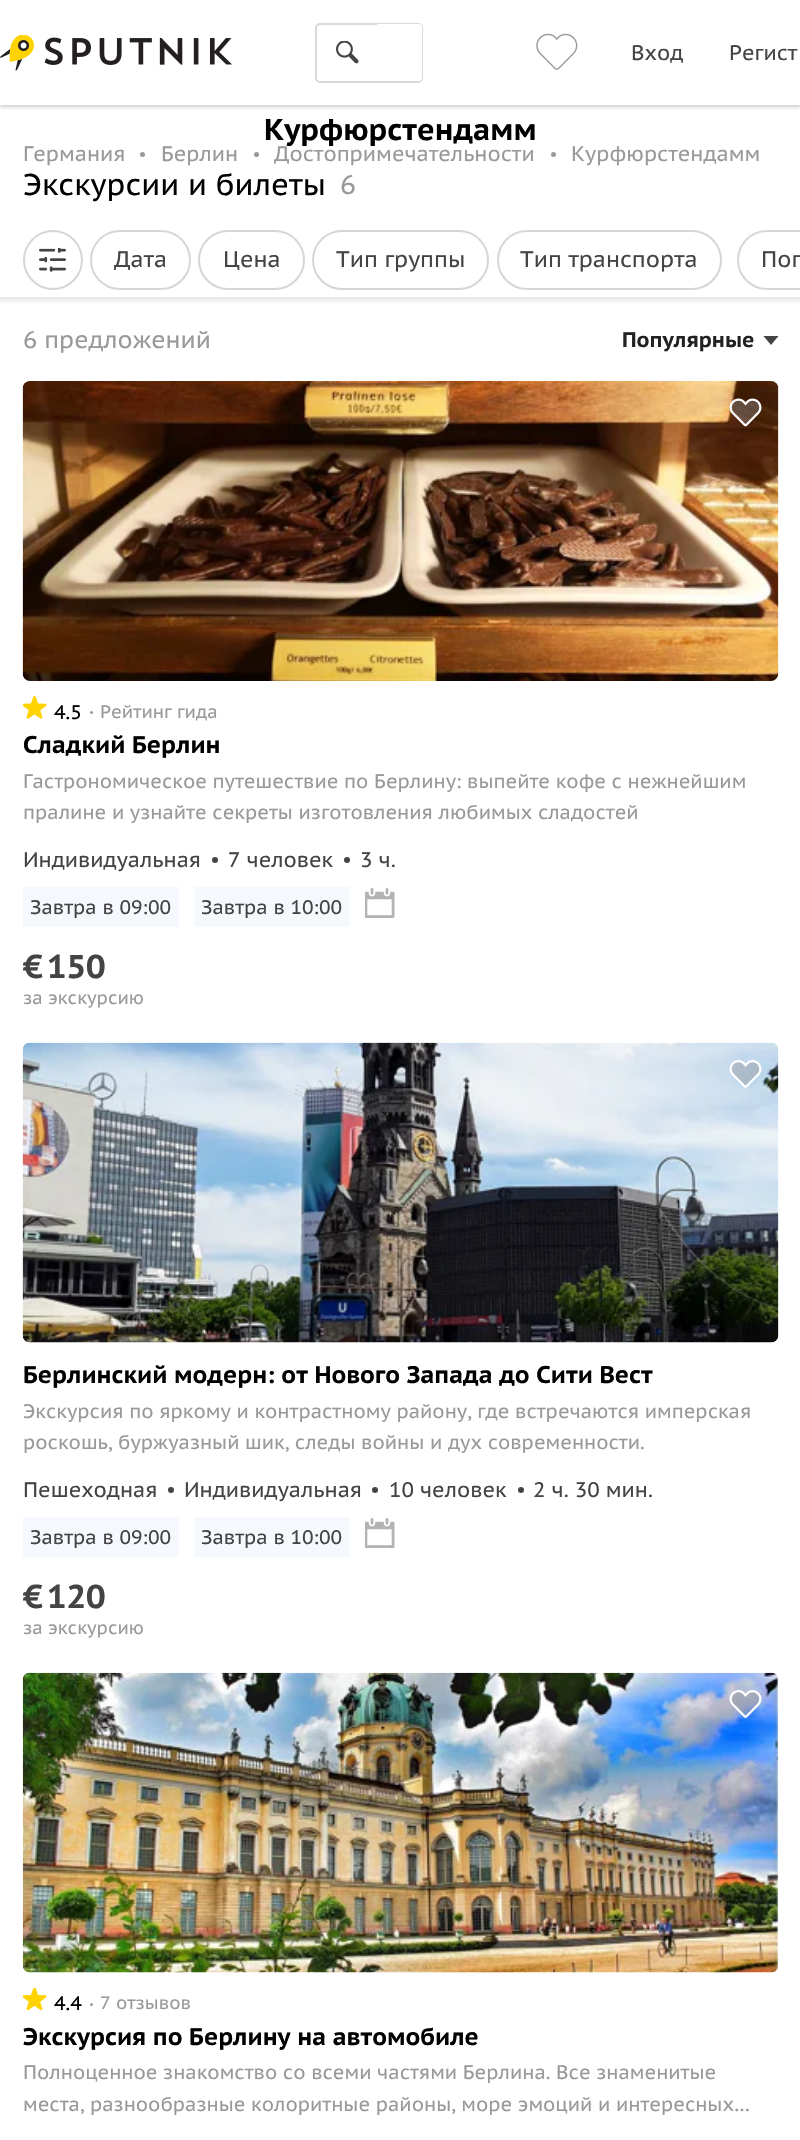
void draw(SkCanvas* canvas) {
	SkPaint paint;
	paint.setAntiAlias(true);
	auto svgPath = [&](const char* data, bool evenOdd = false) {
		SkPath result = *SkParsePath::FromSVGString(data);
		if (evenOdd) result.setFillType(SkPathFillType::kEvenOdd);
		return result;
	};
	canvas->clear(0xffffffff);
	canvas->save();
	canvas->clipRect(SkRect::MakeXYWH(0, 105, 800, 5));
	paint.setColor(0x33000000);
	paint.setMaskFilter(SkMaskFilter::MakeBlur(kNormal_SkBlurStyle, 2));
	canvas->drawRect(SkRect::MakeXYWH(0, 2, 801, 105), paint);
	paint.setMaskFilter(nullptr);
	canvas->restore();
	canvas->drawImageRect(SkImages::DeferredFromEncodedData(SkData::MakeFromFileName("img1.png")), SkRect::MakeXYWH(0, 35, 232, 36), SkSamplingOptions());
	canvas->drawImageRect(SkImages::DeferredFromEncodedData(SkData::MakeFromFileName("img2.png")), SkRect::MakeXYWH(336, 41, 23, 23), SkSamplingOptions());
	paint.setStroke(true);
	paint.setStrokeWidth(2);
	paint.setColor(0xffd9d9d9);
	canvas->drawRoundRect(SkRect::MakeXYWH(316, 24, 106, 58), 4, 4, paint);
	paint.setStroke(false);
	paint.setColor(0xffffffff);
	canvas->drawPath(svgPath("M377 24H419C420.5 24 422 25.5 422 27V78C422 79.5 420.5 81 419 81H377Z"), paint);
	canvas->drawImageRect(SkImages::DeferredFromEncodedData(SkData::MakeFromFileName("img3.png")), SkRect::MakeXYWH(536, 33, 42, 37), SkSamplingOptions());
	SkFont f1(fontMgr->matchFamilyStyle("PT Sans Caption", SkFontStyle::Normal()), 21);
	f1.setSubpixel(true);
	paint.setColor(0xff444444);
	canvas->drawString("Вход", 631, 60, f1, paint);
	canvas->drawString("Регист", 729, 60, f1, paint);
	SkFont f2(fontMgr->matchFamilyStyle("PT Sans Caption", SkFontStyle::Bold()), 30);
	f2.setSubpixel(true);
	paint.setColor(0xff000000);
	canvas->drawString("Курфюрстендамм", 264, 140, f2, paint);
	paint.setColor(0xff999999);
	canvas->drawString("Германия", 23, 161, f1, paint);
	canvas->drawCircle(142.5, 154.5, 2.5, paint);
	canvas->drawString("Берлин", 161, 161, f1, paint);
	canvas->drawCircle(256.5, 154.5, 2.5, paint);
	canvas->drawString("Достопримечательности", 274, 161, f1, paint);
	canvas->drawCircle(553.5, 154.5, 2.5, paint);
	canvas->drawString("Курфюрстендамм", 571, 161, f1, paint);
	SkFont f3(fontMgr->matchFamilyStyle("PT Sans Caption", SkFontStyle::Normal()), 30);
	f3.setSubpixel(true);
	paint.setColor(0xff000000);
	canvas->drawString("Экскурсии и билеты", 23, 195, f3, paint);
	SkFont f4(fontMgr->matchFamilyStyle("PT Sans Caption", SkFontStyle::Normal()), 27);
	f4.setSubpixel(true);
	paint.setColor(0xff999999);
	canvas->drawString("6", 340, 194, f4, paint);
	paint.setStroke(true);
	paint.setColor(0xffd6d6d6);
	canvas->drawCircle(53, 260, 29, paint);
	canvas->drawImageRect(SkImages::DeferredFromEncodedData(SkData::MakeFromFileName("img4.png")), SkRect::MakeXYWH(39, 248, 27, 24), SkSamplingOptions());
	canvas->drawRoundRect(SkRect::MakeXYWH(91, 231, 99, 58), 29, 29, paint);
	SkFont f5(fontMgr->matchFamilyStyle("PT Sans Caption", SkFontStyle::Normal()), 22.5);
	f5.setSubpixel(true);
	paint.setStroke(false);
	paint.setColor(0xff444444);
	canvas->drawString("Дата", 114, 267, f5, paint);
	paint.setStroke(true);
	paint.setColor(0xffd6d6d6);
	canvas->drawRoundRect(SkRect::MakeXYWH(199, 231, 105, 58), 29, 29, paint);
	paint.setStroke(false);
	paint.setColor(0xff444444);
	canvas->drawString("Цена", 223, 267, f5, paint);
	paint.setStroke(true);
	paint.setColor(0xffd6d6d6);
	canvas->drawRoundRect(SkRect::MakeXYWH(313, 231, 175, 58), 29, 29, paint);
	paint.setStroke(false);
	paint.setColor(0xff444444);
	canvas->drawString("Тип группы", 336, 267, f5, paint);
	paint.setStroke(true);
	paint.setColor(0xffd6d6d6);
	canvas->drawRoundRect(SkRect::MakeXYWH(498, 231, 223, 58), 29, 29, paint);
	paint.setStroke(false);
	paint.setColor(0xff444444);
	canvas->drawString("Тип транспорта", 520, 267, f5, paint);
	paint.setStroke(true);
	paint.setColor(0xffd6d6d6);
	canvas->drawRoundRect(SkRect::MakeXYWH(738, 231, 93, 58), 29, 29, paint);
	paint.setStroke(false);
	paint.setColor(0xff444444);
	canvas->drawString("Поп", 761, 267, f5, paint);
	{
		const SkColor colors[] = {0xffffffff, 0xffe6e6e6};
		const float stops[] = {0, 1};
		const SkPoint ends[] = {{401, 305}, {401, 297}};
		paint.setShader(SkGradientShader::MakeLinear(ends, colors, stops, 2, SkTileMode::kClamp));
		paint.setAlpha(255);
	}
	canvas->drawRect(SkRect::MakeXYWH(0, 297, 800, 7), paint);
	SkFont f6(fontMgr->matchFamilyStyle("PT Sans Caption", SkFontStyle::Normal()), 24);
	f6.setSubpixel(true);
	paint.setShader(nullptr);
	paint.setColor(0xff999999);
	canvas->drawString("6 предложений", 23, 348, f6, paint);
	SkFont f7(fontMgr->matchFamilyStyle("PT Sans Caption", SkFontStyle::Bold()), 21);
	f7.setSubpixel(true);
	paint.setColor(0xff222222);
	canvas->drawString("Популярные", 622, 347, f7, paint);
	paint.setColor(0xff444444);
	canvas->drawPath(svgPath("M763.5 336H778.5L771 345Z"), paint);
	canvas->drawImageRect(SkImages::DeferredFromEncodedData(SkData::MakeFromFileName("img5.png")), SkRect::MakeXYWH(22, 381, 757, 300), SkSamplingOptions());
	canvas->drawImageRect(SkImages::DeferredFromEncodedData(SkData::MakeFromFileName("img6.png")), SkRect::MakeXYWH(729, 398, 33, 29), SkSamplingOptions());
	canvas->drawImageRect(SkImages::DeferredFromEncodedData(SkData::MakeFromFileName("img7.png")), SkRect::MakeXYWH(23, 696, 24, 23), SkSamplingOptions());
	SkFont f8(fontMgr->matchFamilyStyle("PT Sans Caption", SkFontStyle::Normal()), 19.5);
	f8.setSubpixel(true);
	paint.setColor(0xff000000);
	canvas->drawString("4.5", 54, 719, f8, paint);
	paint.setColor(0xff999999);
	canvas->drawCircle(91.5, 712.5, 1.5, paint);
	SkFont f9(fontMgr->matchFamilyStyle("PT Sans Caption", SkFontStyle::Normal()), 18);
	f9.setSubpixel(true);
	canvas->drawString("Рейтинг гида", 100, 718, f9, paint);
	SkFont f10(fontMgr->matchFamilyStyle("PT Sans Caption", SkFontStyle::Bold()), 24);
	f10.setSubpixel(true);
	paint.setColor(0xff000000);
	canvas->drawString("Сладкий Берлин", 23, 753, f10, paint);
	paint.setColor(0xff999999);
	canvas->drawString("Гастрономическое путешествие по Берлину: выпейте кофе с нежнейшим", 23, 788, f8, paint);
	canvas->drawString("пралине и узнайте секреты изготовления любимых сладостей", 23, 819, f8, paint);
	paint.setColor(0xff444444);
	canvas->drawString("Индивидуальная", 23, 867, f1, paint);
	canvas->drawCircle(215, 860, 3, paint);
	canvas->drawString("7 человек", 228, 867, f1, paint);
	canvas->drawCircle(347, 860, 3, paint);
	canvas->drawString("3 ч.", 360, 867, f1, paint);
	canvas->drawImageRect(SkImages::DeferredFromEncodedData(SkData::MakeFromFileName("img8.png")), SkRect::MakeXYWH(365, 888, 30, 30), SkSamplingOptions());
	paint.setColor(0xfff5f8fd);
	canvas->drawRect(SkRect::MakeXYWH(23, 887, 156, 40), paint);
	paint.setColor(0xff444444);
	canvas->drawString("Завтра в 09:00", 30, 914, f8, paint);
	paint.setColor(0xfff5f8fd);
	canvas->drawRect(SkRect::MakeXYWH(194, 887, 156, 40), paint);
	paint.setColor(0xff444444);
	canvas->drawString("Завтра в 10:00", 201, 914, f8, paint);
	canvas->save();
	canvas->clipPath(svgPath("M28 381H774C777 381 779 383 779 386V1008C779 1011 777 1013 774 1013H28C25 1013 23 1011 23 1008V386C23 383 25 381 28 381Z"), true);
	SkFont f11(fontMgr->matchFamilyStyle("PT Sans Caption", SkFontStyle::Bold()), 33);
	f11.setSubpixel(true);
	canvas->drawString("€", 23, 978, f11, paint);
	canvas->restore();
	canvas->drawString("150", 47, 978, f11, paint);
	paint.setColor(0xff999999);
	canvas->drawString("за экскурсию", 23, 1004, f9, paint);
	canvas->drawImageRect(SkImages::DeferredFromEncodedData(SkData::MakeFromFileName("img9.png")), SkRect::MakeXYWH(22, 1042, 757, 301), SkSamplingOptions());
	canvas->drawImageRect(SkImages::DeferredFromEncodedData(SkData::MakeFromFileName("img10.png")), SkRect::MakeXYWH(729, 1060, 33, 28), SkSamplingOptions());
	paint.setColor(0xff000000);
	canvas->drawString("Берлинский модерн: от Нового Запада до Сити Вест", 23, 1383, f10, paint);
	paint.setColor(0xff999999);
	canvas->drawString("Экскурсия по яркому и контрастному району, где встречаются имперская", 23, 1418, f8, paint);
	canvas->drawString("роскошь, буржуазный шик, следы войны и дух современности.", 23, 1449, f8, paint);
	paint.setColor(0xff444444);
	canvas->drawString("Пешеходная", 23, 1497, f1, paint);
	canvas->drawCircle(171, 1490, 3, paint);
	canvas->drawString("Индивидуальная", 184, 1497, f1, paint);
	canvas->drawCircle(375, 1490, 3, paint);
	canvas->drawString("10 человек", 389, 1497, f1, paint);
	canvas->drawCircle(521, 1490, 3, paint);
	canvas->drawString("2 ч. 30 мин.", 533, 1497, f1, paint);
	canvas->drawImageRect(SkImages::DeferredFromEncodedData(SkData::MakeFromFileName("img8.png")), SkRect::MakeXYWH(365, 1518, 30, 30), SkSamplingOptions());
	paint.setColor(0xfff5f8fd);
	canvas->drawRect(SkRect::MakeXYWH(23, 1517, 156, 40), paint);
	paint.setColor(0xff444444);
	canvas->drawString("Завтра в 09:00", 30, 1544, f8, paint);
	paint.setColor(0xfff5f8fd);
	canvas->drawRect(SkRect::MakeXYWH(194, 1517, 156, 40), paint);
	paint.setColor(0xff444444);
	canvas->drawString("Завтра в 10:00", 201, 1544, f8, paint);
	canvas->save();
	canvas->clipPath(svgPath("M28 1043H774C777 1043 779 1045 779 1048V1638C779 1641 777 1643 774 1643H28C25 1643 23 1641 23 1638V1048C23 1045 25 1043 28 1043Z"), true);
	canvas->drawString("€", 23, 1608, f11, paint);
	canvas->restore();
	canvas->drawString("120", 47, 1608, f11, paint);
	paint.setColor(0xff999999);
	canvas->drawString("за экскурсию", 23, 1634, f9, paint);
	canvas->drawImageRect(SkImages::DeferredFromEncodedData(SkData::MakeFromFileName("img11.png")), SkRect::MakeXYWH(22, 1672, 757, 301), SkSamplingOptions());
	canvas->drawImageRect(SkImages::DeferredFromEncodedData(SkData::MakeFromFileName("img12.png")), SkRect::MakeXYWH(729, 1690, 33, 28), SkSamplingOptions());
	canvas->drawImageRect(SkImages::DeferredFromEncodedData(SkData::MakeFromFileName("img13.png")), SkRect::MakeXYWH(23, 1988, 24, 23), SkSamplingOptions());
	paint.setColor(0xff000000);
	canvas->drawString("4.4", 54, 2010, f8, paint);
	paint.setColor(0xff999999);
	canvas->drawCircle(91.5, 2004.5, 1.5, paint);
	canvas->drawString("7 отзывов", 100, 2009, f9, paint);
	paint.setColor(0xff000000);
	canvas->drawString("Экскурсия по Берлину на автомобиле", 23, 2045, f10, paint);
	paint.setColor(0xff999999);
	canvas->drawString("Полноценное знакомство со всеми частями Берлина. Все знаменитые", 23, 2079, f8, paint);
	canvas->drawString("места, разнообразные колоритные районы, море эмоций и интересных…", 23, 2111, f8, paint);
}
